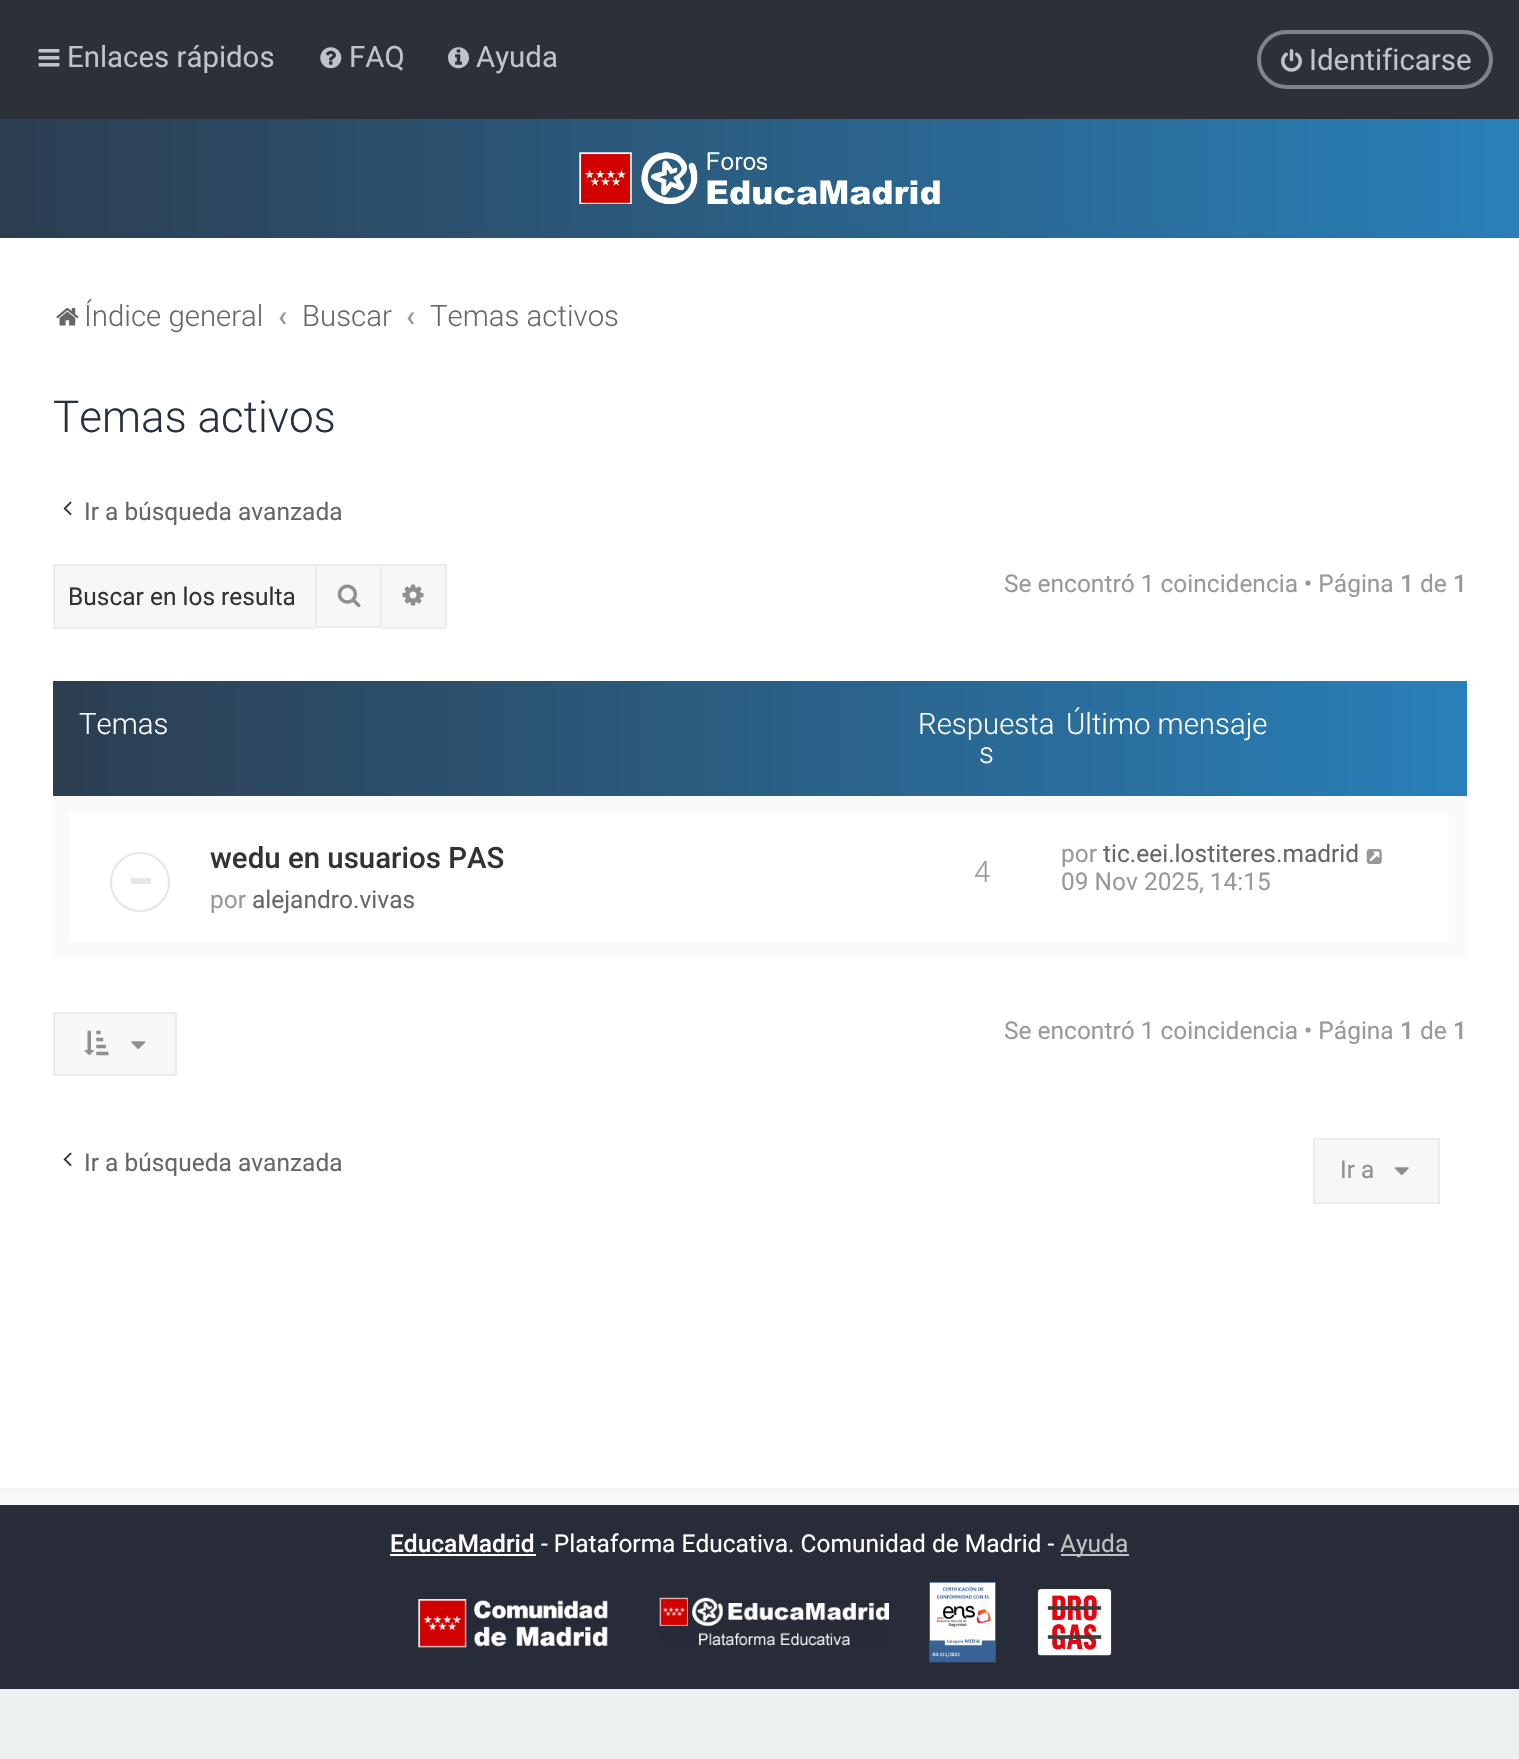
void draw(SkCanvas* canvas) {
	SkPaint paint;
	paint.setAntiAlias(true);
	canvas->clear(0xffecf0f1);
	paint.setColor(0xff2d3039);
	canvas->drawRect(SkRect::MakeXYWH(0, 0, 1519, 119), paint);
	canvas->drawImageRect(SkImages::DeferredFromEncodedData(SkData::MakeFromFileName("img1.png")), SkRect::MakeXYWH(38, 49, 22, 18), SkSamplingOptions());
	SkFont f1(fontMgr->matchFamilyStyle("Roboto", SkFontStyle::Normal()), 29.4);
	f1.setSubpixel(true);
	paint.setColor(0xffbec4c9);
	canvas->drawString("Enlaces rápidos", 67, 67, f1, paint);
	canvas->drawImageRect(SkImages::DeferredFromEncodedData(SkData::MakeFromFileName("img2.png")), SkRect::MakeXYWH(320, 47, 22, 22), SkSamplingOptions());
	canvas->drawString("FAQ", 349, 67, f1, paint);
	canvas->drawImageRect(SkImages::DeferredFromEncodedData(SkData::MakeFromFileName("img3.png")), SkRect::MakeXYWH(448, 47, 21, 22), SkSamplingOptions());
	canvas->drawString("Ayuda", 476, 67, f1, paint);
	paint.setStroke(true);
	paint.setStrokeWidth(4);
	paint.setColor(0xff818388);
	canvas->drawRoundRect(SkRect::MakeXYWH(1259, 32, 232, 55), 27.5, 27.5, paint);
	canvas->drawImageRect(SkImages::DeferredFromEncodedData(SkData::MakeFromFileName("img4.png")), SkRect::MakeXYWH(1281, 49, 21, 23), SkSamplingOptions());
	paint.setStroke(false);
	paint.setColor(0xffbec4c9);
	canvas->drawString("Identificarse", 1309, 70, f1, paint);
	{
		const SkColor colors[] = {0xff2c3e50, 0xff2980b9};
		const float stops[] = {0, 1};
		const SkPoint ends[] = {{0, 222}, {1519, 222}};
		paint.setShader(SkGradientShader::MakeLinear(ends, colors, stops, 2, SkTileMode::kClamp));
		paint.setAlpha(255);
	}
	canvas->drawRect(SkRect::MakeXYWH(0, 119, 1519, 119), paint);
	canvas->drawImageRect(SkImages::DeferredFromEncodedData(SkData::MakeFromFileName("img5.png")), SkRect::MakeXYWH(579, 152, 361, 53), SkSamplingOptions());
	paint.setShader(nullptr);
	paint.setColor(0xfff9f9f9);
	canvas->drawRect(SkRect::MakeXYWH(0, 1488, 1519, 17), paint);
	paint.setColor(0x0d000000);
	paint.setMaskFilter(SkMaskFilter::MakeBlur(kNormal_SkBlurStyle, 4.5));
	canvas->drawRect(SkRect::MakeXYWH(0, 238, 1519, 1250), paint);
	paint.setMaskFilter(nullptr);
	paint.setColor(0xffffffff);
	canvas->drawRect(SkRect::MakeXYWH(0, 238, 1519, 1250), paint);
	canvas->drawImageRect(SkImages::DeferredFromEncodedData(SkData::MakeFromFileName("img6.png")), SkRect::MakeXYWH(56, 308, 23, 18), SkSamplingOptions());
	SkFont f2(fontMgr->matchFamilyStyle("Roboto", SkFontStyle(300, SkFontStyle::kNormal_Width, SkFontStyle::kUpright_Slant)), 29.4);
	f2.setSubpixel(true);
	paint.setColor(0xff676767);
	canvas->drawString("Índice general", 84, 326, f2, paint);
	SkFont f3(fontMgr->matchFamilyStyle("Roboto", SkFontStyle(500, SkFontStyle::kNormal_Width, SkFontStyle::kUpright_Slant)), 29.4);
	f3.setSubpixel(true);
	paint.setColor(0xff999999);
	canvas->drawString("‹", 278, 326, f3, paint);
	paint.setColor(0xff676767);
	canvas->drawString("Buscar", 302, 326, f2, paint);
	paint.setColor(0xff999999);
	canvas->drawString("‹", 406, 326, f3, paint);
	paint.setColor(0xff676767);
	canvas->drawString("Temas activos", 430, 326, f2, paint);
	SkFont f4(fontMgr->matchFamilyStyle("Roboto", SkFontStyle(300, SkFontStyle::kNormal_Width, SkFontStyle::kUpright_Slant)), 44);
	f4.setSubpixel(true);
	paint.setColor(0xff28313f);
	canvas->drawString("Temas activos", 53, 432, f4, paint);
	canvas->drawImageRect(SkImages::DeferredFromEncodedData(SkData::MakeFromFileName("img7.png")), SkRect::MakeXYWH(63, 501, 9, 15), SkSamplingOptions());
	SkFont f5(fontMgr->matchFamilyStyle("Roboto", SkFontStyle::Normal()), 24.5);
	f5.setSubpixel(true);
	paint.setColor(0xff676767);
	canvas->drawString("Ir a búsqueda avanzada", 84, 520, f5, paint);
	paint.setColor(0xfff7f7f7);
	canvas->drawRect(SkRect::MakeXYWH(55, 566, 260, 61), paint);
	paint.setColor(0xffedecec);
	canvas->drawRect(SkRect::MakeXYWH(53, 564, 262, 2), paint);
	canvas->drawRect(SkRect::MakeXYWH(53, 627, 262, 2), paint);
	canvas->drawRect(SkRect::MakeXYWH(53, 564, 2, 64), paint);
	canvas->save();
	canvas->clipRect(SkRect::MakeXYWH(68, 583, 226, 28));
	paint.setColor(0xff333333);
	canvas->drawString("Buscar en los resulta", 68, 605, f5, paint);
	canvas->restore();
	paint.setColor(0xfff7f7f7);
	canvas->drawRect(SkRect::MakeXYWH(316, 565, 65, 62), paint);
	paint.setStroke(true);
	paint.setStrokeWidth(2);
	paint.setColor(0xffedecec);
	canvas->drawRect(SkRect::MakeXYWH(316, 565, 65, 62), paint);
	canvas->drawImageRect(SkImages::DeferredFromEncodedData(SkData::MakeFromFileName("img8.png")), SkRect::MakeXYWH(337, 584, 24, 24), SkSamplingOptions());
	paint.setStroke(false);
	paint.setColor(0xfff7f7f7);
	canvas->drawRect(SkRect::MakeXYWH(382, 566, 63, 61), paint);
	paint.setColor(0xffedecec);
	canvas->drawRect(SkRect::MakeXYWH(382, 564, 64, 2), paint);
	canvas->drawRect(SkRect::MakeXYWH(445, 564, 2, 64), paint);
	canvas->drawRect(SkRect::MakeXYWH(382, 627, 64, 2), paint);
	canvas->drawImageRect(SkImages::DeferredFromEncodedData(SkData::MakeFromFileName("img9.png")), SkRect::MakeXYWH(402, 584, 22, 22), SkSamplingOptions());
	paint.setColor(0xff999999);
	canvas->drawString("Se encontró 1 coincidencia • Página", 1004, 592, f5, paint);
	SkFont f6(fontMgr->matchFamilyStyle("Roboto", SkFontStyle(500, SkFontStyle::kNormal_Width, SkFontStyle::kUpright_Slant)), 24.5);
	f6.setSubpixel(true);
	canvas->drawString("1", 1400, 592, f6, paint);
	canvas->drawString("de", 1420, 592, f5, paint);
	canvas->drawString("1", 1453, 592, f6, paint);
	paint.setColor(0xfffafafa);
	canvas->drawRect(SkRect::MakeXYWH(53, 796, 1414, 163), paint);
	{
		const SkColor colors[] = {0xff2c3e50, 0xff2980b9};
		const float stops[] = {0, 1};
		const SkPoint ends[] = {{53, 739}, {1467, 739}};
		paint.setShader(SkGradientShader::MakeLinear(ends, colors, stops, 2, SkTileMode::kClamp));
		paint.setAlpha(255);
	}
	canvas->drawRect(SkRect::MakeXYWH(53, 681, 1414, 115), paint);
	paint.setShader(nullptr);
	paint.setColor(0xffffffff);
	canvas->drawString("Temas", 79, 734, f2, paint);
	canvas->drawString("Respuesta", 918, 734, f2, paint);
	canvas->drawString("s", 979, 763, f2, paint);
	canvas->drawString("Último mensaje", 1066, 734, f2, paint);
	canvas->drawRect(SkRect::MakeXYWH(70, 814, 1379, 128), paint);
	paint.setStroke(true);
	paint.setColor(0xffe6e6e6);
	canvas->drawCircle(140, 882, 29, paint);
	paint.setStroke(false);
	canvas->drawRect(SkRect::MakeXYWH(131, 878, 20, 6), paint);
	paint.setColor(0xff333333);
	canvas->drawString("wedu en usuarios PAS", 210, 868, f3, paint);
	paint.setColor(0xff999999);
	canvas->drawString("por", 210, 908, f5, paint);
	paint.setColor(0xff676767);
	canvas->drawString("alejandro.vivas", 252, 908, f5, paint);
	paint.setColor(0xff999999);
	canvas->drawString("4", 974, 882, f2, paint);
	canvas->drawString("por", 1061, 862, f5, paint);
	paint.setColor(0xff676767);
	canvas->drawString("tic.eei.lostiteres.madrid", 1103, 862, f5, paint);
	canvas->drawImageRect(SkImages::DeferredFromEncodedData(SkData::MakeFromFileName("img10.png")), SkRect::MakeXYWH(1366, 849, 16, 15), SkSamplingOptions());
	paint.setColor(0xff999999);
	canvas->drawString("09 Nov 2025, 14:15", 1061, 890, f5, paint);
	paint.setColor(0xfff7f7f7);
	canvas->drawRect(SkRect::MakeXYWH(54, 1013, 122, 62), paint);
	paint.setStroke(true);
	paint.setColor(0xffedecec);
	canvas->drawRect(SkRect::MakeXYWH(54, 1013, 122, 62), paint);
	canvas->drawImageRect(SkImages::DeferredFromEncodedData(SkData::MakeFromFileName("img11.png")), SkRect::MakeXYWH(84, 1030, 25, 26), SkSamplingOptions());
	canvas->drawImageRect(SkImages::DeferredFromEncodedData(SkData::MakeFromFileName("img12.png")), SkRect::MakeXYWH(131, 1041, 15, 8), SkSamplingOptions());
	paint.setStroke(false);
	paint.setColor(0xff999999);
	canvas->drawString("Se encontró 1 coincidencia • Página", 1004, 1039, f5, paint);
	canvas->drawString("1", 1400, 1039, f6, paint);
	canvas->drawString("de", 1420, 1039, f5, paint);
	canvas->drawString("1", 1453, 1039, f6, paint);
	canvas->drawImageRect(SkImages::DeferredFromEncodedData(SkData::MakeFromFileName("img7.png")), SkRect::MakeXYWH(63, 1152, 9, 15), SkSamplingOptions());
	paint.setColor(0xff676767);
	canvas->drawString("Ir a búsqueda avanzada", 84, 1171, f5, paint);
	paint.setColor(0xfff7f7f7);
	canvas->drawRect(SkRect::MakeXYWH(1314, 1139, 125, 64), paint);
	paint.setStroke(true);
	paint.setColor(0xffedecec);
	canvas->drawRect(SkRect::MakeXYWH(1314, 1139, 125, 64), paint);
	paint.setStroke(false);
	paint.setColor(0xff8f8f8f);
	canvas->drawString("Ir a", 1340, 1178, f5, paint);
	canvas->drawImageRect(SkImages::DeferredFromEncodedData(SkData::MakeFromFileName("img13.png")), SkRect::MakeXYWH(1394, 1167, 15, 8), SkSamplingOptions());
	paint.setColor(0xff272c38);
	canvas->drawRect(SkRect::MakeXYWH(0, 1505, 1519, 184), paint);
	paint.setColor(0xffffffff);
	canvas->drawString("EducaMadrid", 390, 1552, f6, paint);
	canvas->drawRect(SkRect::MakeXYWH(390, 1554, 146, 2), paint);
	canvas->drawString("- Plataforma Educativa. Comunidad de Madrid -", 541, 1552, f5, paint);
	paint.setColor(0xffbec0c3);
	canvas->drawRect(SkRect::MakeXYWH(1061, 1554, 68, 2), paint);
	canvas->drawString("Ayuda", 1060, 1552, f5, paint);
	canvas->drawImageRect(SkImages::DeferredFromEncodedData(SkData::MakeFromFileName("img14.png")), SkRect::MakeXYWH(418, 1599, 190, 49), SkSamplingOptions());
	canvas->drawImageRect(SkImages::DeferredFromEncodedData(SkData::MakeFromFileName("img15.png")), SkRect::MakeXYWH(659, 1597, 230, 49), SkSamplingOptions());
	canvas->drawImageRect(SkImages::DeferredFromEncodedData(SkData::MakeFromFileName("img16.png")), SkRect::MakeXYWH(929, 1582, 67, 81), SkSamplingOptions());
	canvas->drawImageRect(SkImages::DeferredFromEncodedData(SkData::MakeFromFileName("img17.png")), SkRect::MakeXYWH(1037, 1589, 75, 67), SkSamplingOptions());
}
